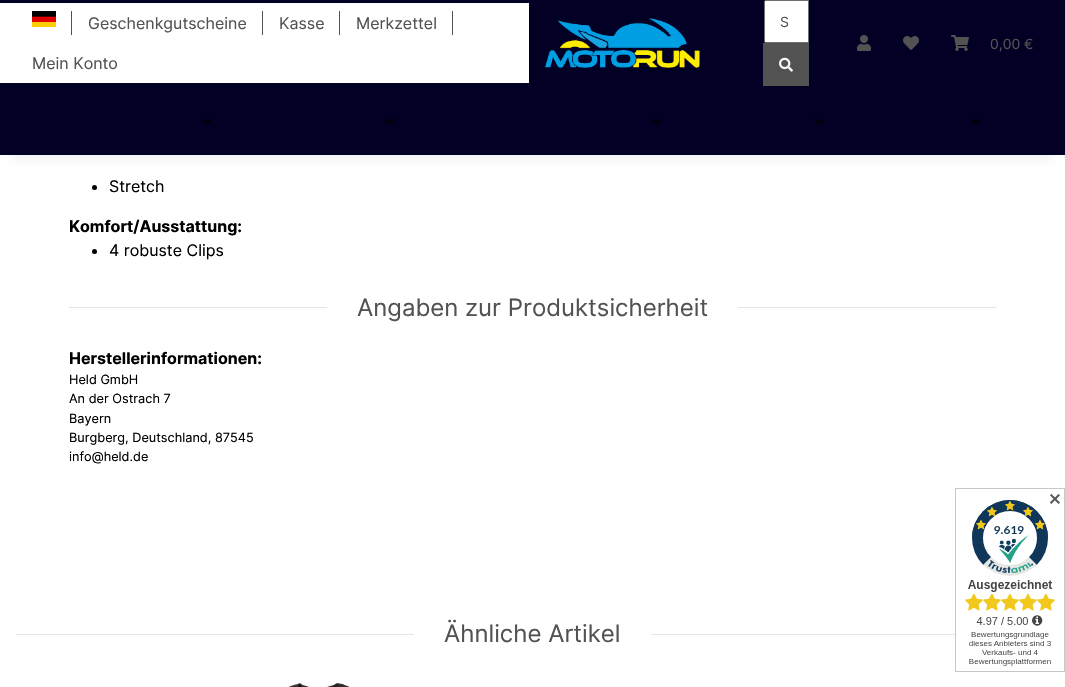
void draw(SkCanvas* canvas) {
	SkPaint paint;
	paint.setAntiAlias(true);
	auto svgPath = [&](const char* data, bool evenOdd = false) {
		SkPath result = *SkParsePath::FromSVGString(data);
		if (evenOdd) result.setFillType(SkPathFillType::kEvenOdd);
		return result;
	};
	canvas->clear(0xffffffff);
	paint.setColor(0x0f000000);
	paint.setMaskFilter(SkMaskFilter::MakeBlur(kNormal_SkBlurStyle, 4.5));
	canvas->drawRect(SkRect::MakeXYWH(12, 28, 1041, 131), paint);
	paint.setMaskFilter(nullptr);
	paint.setColor(0xff020024);
	canvas->drawRect(SkRect::MakeXYWH(0, 0, 1065, 155), paint);
	paint.setColor(0xffffffff);
	canvas->drawRect(SkRect::MakeXYWH(0, 3, 529, 80), paint);
	canvas->drawImageRect(SkImages::DeferredFromEncodedData(SkData::MakeFromFileName("img1.png")), SkRect::MakeXYWH(32, 11, 24, 16), SkSamplingOptions());
	paint.setColor(0xff525252);
	canvas->drawRect(SkRect::MakeXYWH(71, 11, 1, 24), paint);
	SkFont f1(fontMgr->matchFamilyStyle("Inter", SkFontStyle::Normal()), 16);
	f1.setSubpixel(true);
	canvas->drawString("Geschenkgutscheine", 88, 29, f1, paint);
	canvas->drawRect(SkRect::MakeXYWH(262, 11, 1, 24), paint);
	canvas->drawString("Kasse", 279, 29, f1, paint);
	canvas->drawRect(SkRect::MakeXYWH(339, 11, 1, 24), paint);
	canvas->drawString("Merkzettel", 356, 29, f1, paint);
	canvas->drawRect(SkRect::MakeXYWH(452, 11, 1, 24), paint);
	canvas->drawString("Mein Konto", 32, 69, f1, paint);
	canvas->drawImageRect(SkImages::DeferredFromEncodedData(SkData::MakeFromFileName("img2.png")), SkRect::MakeXYWH(545, 18, 155, 50), SkSamplingOptions());
	paint.setColor(0xffffffff);
	canvas->drawPath(svgPath("M766 .5H808.5V42.5H766C765 42.5 764.5 42 764.5 41V2C764.5 1 765 .5 766 .5Z"), paint);
	paint.setStroke(true);
	paint.setStrokeWidth(1);
	paint.setColor(0xff707070);
	canvas->drawPath(svgPath("M766 .5H808.5V42.5H766C765 42.5 764.5 42 764.5 41V2C764.5 1 765 .5 766 .5Z"), paint);
	SkFont f2(fontMgr->matchFamilyStyle("Inter", SkFontStyle::Normal()), 14);
	f2.setSubpixel(true);
	paint.setStroke(false);
	paint.setColor(0xff525252);
	canvas->drawString("S", 780, 27, f2, paint);
	canvas->drawRect(SkRect::MakeXYWH(763, 43, 46, 43), paint);
	canvas->drawImageRect(SkImages::DeferredFromEncodedData(SkData::MakeFromFileName("img3.png")), SkRect::MakeXYWH(779, 57, 14, 15), SkSamplingOptions());
	canvas->drawImageRect(SkImages::DeferredFromEncodedData(SkData::MakeFromFileName("img4.png")), SkRect::MakeXYWH(857, 35, 14, 16), SkSamplingOptions());
	canvas->drawImageRect(SkImages::DeferredFromEncodedData(SkData::MakeFromFileName("img5.png")), SkRect::MakeXYWH(903, 36, 16, 14), SkSamplingOptions());
	canvas->drawImageRect(SkImages::DeferredFromEncodedData(SkData::MakeFromFileName("img6.png")), SkRect::MakeXYWH(951, 35, 18, 16), SkSamplingOptions());
	canvas->drawString("0,00 €", 990, 49, f2, paint);
	canvas->drawImageRect(SkImages::DeferredFromEncodedData(SkData::MakeFromFileName("img7.png")), SkRect::MakeXYWH(201, 118, 11, 7), SkSamplingOptions());
	canvas->drawImageRect(SkImages::DeferredFromEncodedData(SkData::MakeFromFileName("img7.png")), SkRect::MakeXYWH(384, 118, 11, 7), SkSamplingOptions());
	canvas->drawImageRect(SkImages::DeferredFromEncodedData(SkData::MakeFromFileName("img7.png")), SkRect::MakeXYWH(652, 118, 11, 7), SkSamplingOptions());
	canvas->drawImageRect(SkImages::DeferredFromEncodedData(SkData::MakeFromFileName("img7.png")), SkRect::MakeXYWH(814, 118, 11, 7), SkSamplingOptions());
	canvas->drawImageRect(SkImages::DeferredFromEncodedData(SkData::MakeFromFileName("img7.png")), SkRect::MakeXYWH(971, 118, 11, 7), SkSamplingOptions());
	paint.setColor(0xff000000);
	canvas->drawCircle(94.5, 187.5, 2.5, paint);
	canvas->drawString("Stretch", 109, 192, f1, paint);
	SkFont f3(fontMgr->matchFamilyStyle("Inter", SkFontStyle::Bold()), 16);
	f3.setSubpixel(true);
	canvas->drawString("Komfort/Ausstattung:", 69, 232, f3, paint);
	canvas->drawCircle(94.5, 251.5, 2.5, paint);
	canvas->drawString("4 robuste Clips", 109, 256, f1, paint);
	paint.setColor(0xffe6e6e6);
	canvas->drawRect(SkRect::MakeXYWH(69, 307, 258, 1), paint);
	SkFont f4(fontMgr->matchFamilyStyle("Inter", SkFontStyle::Normal()), 24);
	f4.setSubpixel(true);
	paint.setColor(0xff525252);
	canvas->drawString("Angaben zur Produktsicherheit", 357, 316, f4, paint);
	paint.setColor(0xffe6e6e6);
	canvas->drawRect(SkRect::MakeXYWH(738, 307, 259, 1), paint);
	paint.setColor(0xff000000);
	canvas->drawString("Herstellerinformationen:", 69, 364, f3, paint);
	SkFont f5(fontMgr->matchFamilyStyle("Inter", SkFontStyle::Normal()), 12.75);
	f5.setSubpixel(true);
	canvas->drawString("Held GmbH", 69, 384, f5, paint);
	canvas->drawString("An der Ostrach 7", 69, 403, f5, paint);
	canvas->drawString("Bayern", 69, 423, f5, paint);
	canvas->drawString("Burgberg, Deutschland, 87545", 69, 442, f5, paint);
	canvas->drawString("info@held.de", 69, 461, f5, paint);
	paint.setColor(0xffe6e6e6);
	canvas->drawRect(SkRect::MakeXYWH(16, 634, 398, 1), paint);
	paint.setColor(0xff525252);
	canvas->drawString("Ähnliche Artikel", 444, 642, f4, paint);
	paint.setColor(0xffe6e6e6);
	canvas->drawRect(SkRect::MakeXYWH(651, 634, 304, 1), paint);
	canvas->drawImageRect(SkImages::DeferredFromEncodedData(SkData::MakeFromFileName("img8.png")), SkRect::MakeXYWH(288, 683, 62, 4), SkSamplingOptions());
	canvas->drawImageRect(SkImages::DeferredFromEncodedData(SkData::MakeFromFileName("img9.png")), SkRect::MakeXYWH(955, 488, 110, 184), SkSamplingOptions());
	SkFont f6(fontMgr->matchFamilyStyle("DejaVu Sans", SkFontStyle::Bold()), 16);
	f6.setSubpixel(true);
	paint.setColor(0xff595959);
	canvas->drawString("✕", 1048, 505, f6, paint);
}
